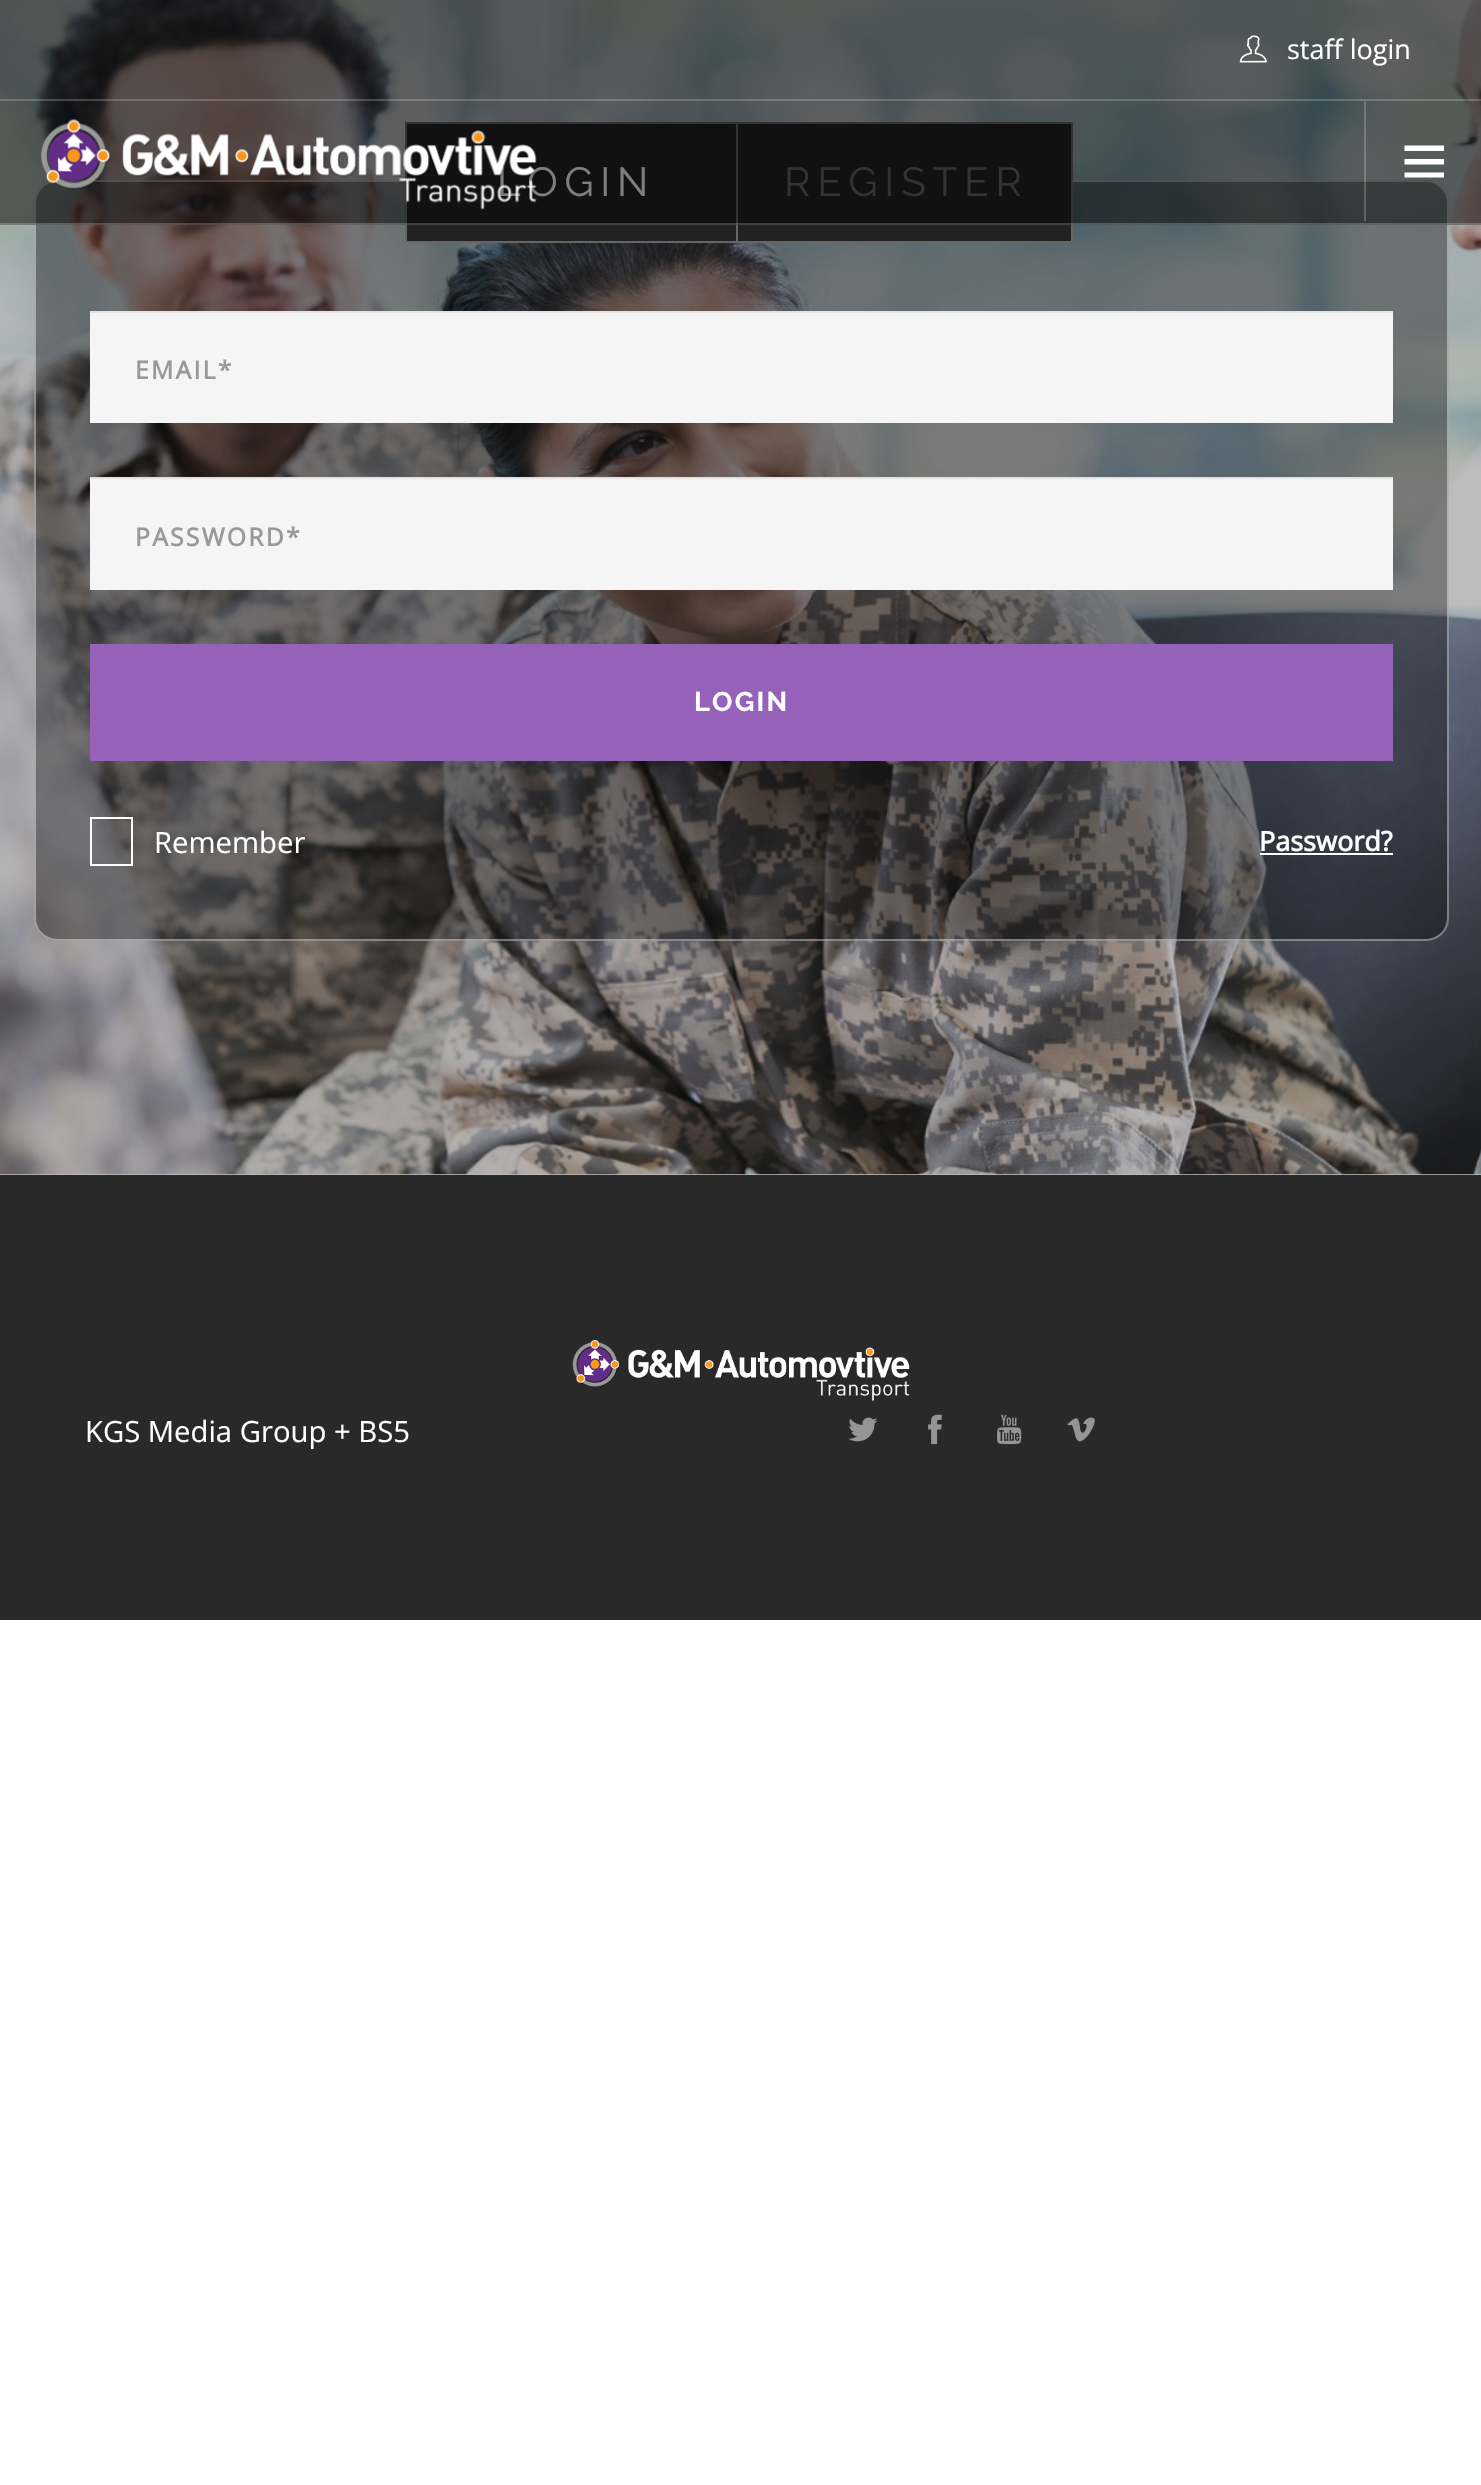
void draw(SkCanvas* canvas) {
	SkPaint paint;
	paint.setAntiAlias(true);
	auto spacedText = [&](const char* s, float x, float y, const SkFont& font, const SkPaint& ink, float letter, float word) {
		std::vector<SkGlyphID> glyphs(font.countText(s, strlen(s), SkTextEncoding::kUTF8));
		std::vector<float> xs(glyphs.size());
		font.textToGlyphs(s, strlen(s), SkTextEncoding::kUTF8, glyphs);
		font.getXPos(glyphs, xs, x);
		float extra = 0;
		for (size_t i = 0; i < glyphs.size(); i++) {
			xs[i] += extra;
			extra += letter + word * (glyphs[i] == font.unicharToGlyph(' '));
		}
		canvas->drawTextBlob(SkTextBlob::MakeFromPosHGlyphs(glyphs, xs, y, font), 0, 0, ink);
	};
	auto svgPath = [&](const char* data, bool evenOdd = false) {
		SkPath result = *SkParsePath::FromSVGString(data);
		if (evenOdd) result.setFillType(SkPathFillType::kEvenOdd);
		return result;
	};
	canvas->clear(0xffffffff);
	paint.setColor(0xffbfbfbf);
	canvas->drawRect(SkRect::MakeXYWH(0, 1174, 1481, 1), paint);
	canvas->drawImageRect(SkImages::DeferredFromEncodedData(SkData::MakeFromFileName("img3.png")), SkRect::MakeXYWH(0, 0, 1481, 1175), SkSamplingOptions());
	paint.setColor(0x59000000);
	canvas->drawRoundRect(SkRect::MakeXYWH(34, 180, 1415, 761), 23, 23, paint);
	paint.setStroke(true);
	paint.setStrokeWidth(2);
	paint.setColor(0x66ffffff);
	canvas->drawRoundRect(SkRect::MakeXYWH(35, 181, 1413, 759), 22, 22, paint);
	paint.setStroke(false);
	paint.setColor(0xff222222);
	canvas->drawRect(SkRect::MakeXYWH(407, 124, 329, 117), paint);
	paint.setStroke(true);
	paint.setColor(0xff666666);
	canvas->drawRect(SkRect::MakeXYWH(406, 123, 336, 119), paint);
	SkFont f1(fontMgr->matchFamilyStyle("Raleway", SkFontStyle::Normal()), 40.5);
	f1.setSubpixel(true);
	paint.setStroke(false);
	paint.setColor(0xffffffff);
	spacedText("LOGIN", 497, 196, f1, paint, 6.75, 0);
	paint.setColor(0xff222222);
	canvas->drawRect(SkRect::MakeXYWH(737, 123, 335, 119), paint);
	paint.setStroke(true);
	paint.setColor(0xff666666);
	canvas->drawRect(SkRect::MakeXYWH(737, 123, 335, 119), paint);
	paint.setStroke(false);
	spacedText("REGISTER", 784, 196, f1, paint, 6.75, 0);
	paint.setColor(0x80000000);
	canvas->drawRect(SkRect::MakeXYWH(0, 0, 1481, 225), paint);
	paint.setColor(0x33ffffff);
	canvas->drawRect(SkRect::MakeXYWH(0, 99, 1481, 2), paint);
	canvas->drawImageRect(SkImages::DeferredFromEncodedData(SkData::MakeFromFileName("img1.png")), SkRect::MakeXYWH(1239, 35, 28, 28), SkSamplingOptions());
	SkFont f2(fontMgr->matchFamilyStyle("Open Sans", SkFontStyle::Normal()), 27);
	f2.setSubpixel(true);
	paint.setColor(0xffffffff);
	canvas->drawString("staff login", 1287, 59, f2, paint);
	paint.setColor(0x33ffffff);
	canvas->drawRect(SkRect::MakeXYWH(0, 223, 1481, 2), paint);
	canvas->drawImageRect(SkImages::DeferredFromEncodedData(SkData::MakeFromFileName("img2.png")), SkRect::MakeXYWH(41, 119, 496, 91), SkSamplingOptions());
	canvas->drawRect(SkRect::MakeXYWH(1364, 101, 2, 120), paint);
	paint.setColor(0xffffffff);
	canvas->drawPath(svgPath("M1444 145.5V151H1404.5V145.5ZM1404.5 164.5H1444V159H1404.5ZM1404.5 177.5H1444V172.5H1404.5Z"), paint);
	paint.setColor(0xfff5f5f5);
	canvas->drawRect(SkRect::MakeXYWH(90, 313, 1303, 110), paint);
	paint.setColor(0xffe3e3e3);
	canvas->drawRect(SkRect::MakeXYWH(90, 311, 1303, 2), paint);
	SkFont f3(fontMgr->matchFamilyStyle("Open Sans", SkFontStyle::Bold()), 24.75);
	f3.setSubpixel(true);
	paint.setColor(0xff999999);
	spacedText("EMAIL*", 135, 379, f3, paint, 2.25, 0);
	paint.setColor(0xfff5f5f5);
	canvas->drawRect(SkRect::MakeXYWH(90, 479, 1303, 111), paint);
	paint.setColor(0xffe3e3e3);
	canvas->drawRect(SkRect::MakeXYWH(90, 477, 1303, 2), paint);
	paint.setColor(0xff999999);
	spacedText("PASSWORD*", 135, 546, f3, paint, 2.25, 0);
	paint.setColor(0xff9561b9);
	canvas->drawRect(SkRect::MakeXYWH(90, 644, 1303, 117), paint);
	SkFont f4(fontMgr->matchFamilyStyle("Raleway", SkFontStyle::Bold()), 27);
	f4.setSubpixel(true);
	paint.setColor(0xffffffff);
	spacedText("LOGIN", 694, 711, f4, paint, 2.25, 0);
	paint.setStroke(true);
	canvas->drawRect(SkRect::MakeXYWH(91, 818, 41, 47), paint);
	SkFont f5(fontMgr->matchFamilyStyle("Open Sans", SkFontStyle::Normal()), 29.25);
	f5.setSubpixel(true);
	paint.setStroke(false);
	canvas->drawString("Remember", 154, 853, f5, paint);
	SkFont f6(fontMgr->matchFamilyStyle("Open Sans", SkFontStyle::Bold()), 27);
	f6.setSubpixel(true);
	canvas->drawString("Password?", 1259, 851, f6, paint);
	canvas->drawRect(SkRect::MakeXYWH(1260, 853, 133, 2), paint);
	paint.setColor(0xff292929);
	canvas->drawRect(SkRect::MakeXYWH(0, 1175, 1481, 445), paint);
	canvas->drawImageRect(SkImages::DeferredFromEncodedData(SkData::MakeFromFileName("img4.png")), SkRect::MakeXYWH(572, 1340, 338, 62), SkSamplingOptions());
	paint.setColor(0xffffffff);
	canvas->drawString("KGS Media Group + BS5", 85, 1442, f5, paint);
	canvas->drawImageRect(SkImages::DeferredFromEncodedData(SkData::MakeFromFileName("img5.png")), SkRect::MakeXYWH(848, 1417, 30, 25), SkSamplingOptions());
	canvas->drawImageRect(SkImages::DeferredFromEncodedData(SkData::MakeFromFileName("img6.png")), SkRect::MakeXYWH(928, 1414, 14, 31), SkSamplingOptions());
	canvas->drawImageRect(SkImages::DeferredFromEncodedData(SkData::MakeFromFileName("img7.png")), SkRect::MakeXYWH(997, 1414, 25, 31), SkSamplingOptions());
	canvas->drawImageRect(SkImages::DeferredFromEncodedData(SkData::MakeFromFileName("img8.png")), SkRect::MakeXYWH(1067, 1417, 28, 25), SkSamplingOptions());
}
